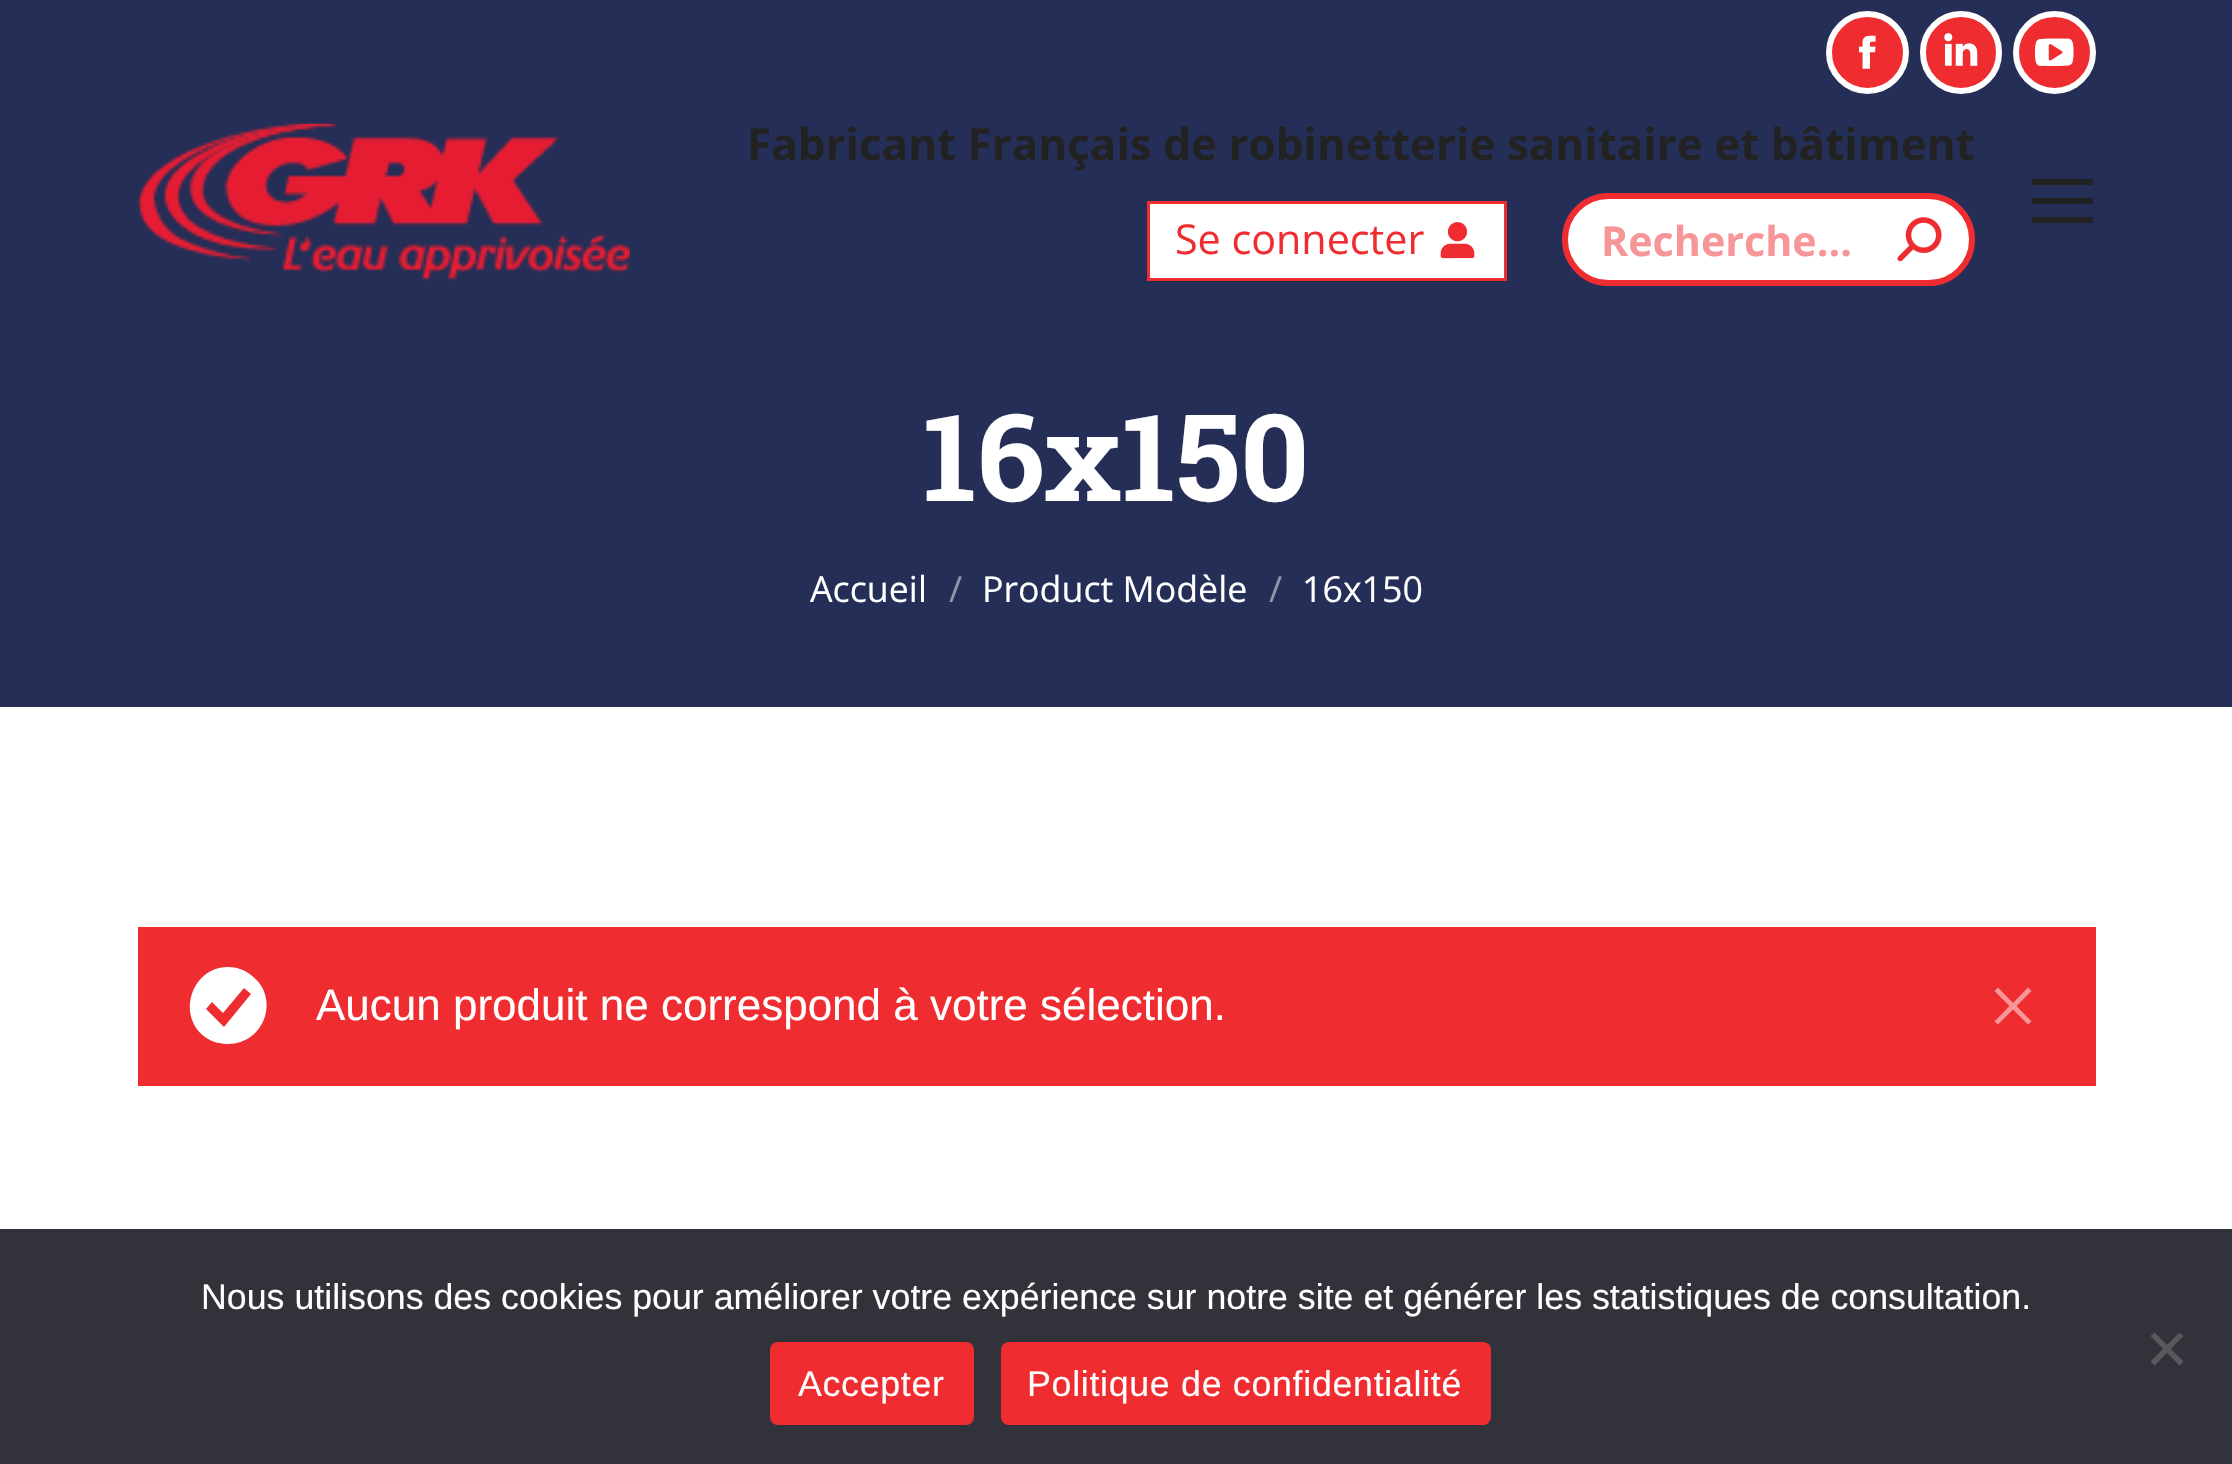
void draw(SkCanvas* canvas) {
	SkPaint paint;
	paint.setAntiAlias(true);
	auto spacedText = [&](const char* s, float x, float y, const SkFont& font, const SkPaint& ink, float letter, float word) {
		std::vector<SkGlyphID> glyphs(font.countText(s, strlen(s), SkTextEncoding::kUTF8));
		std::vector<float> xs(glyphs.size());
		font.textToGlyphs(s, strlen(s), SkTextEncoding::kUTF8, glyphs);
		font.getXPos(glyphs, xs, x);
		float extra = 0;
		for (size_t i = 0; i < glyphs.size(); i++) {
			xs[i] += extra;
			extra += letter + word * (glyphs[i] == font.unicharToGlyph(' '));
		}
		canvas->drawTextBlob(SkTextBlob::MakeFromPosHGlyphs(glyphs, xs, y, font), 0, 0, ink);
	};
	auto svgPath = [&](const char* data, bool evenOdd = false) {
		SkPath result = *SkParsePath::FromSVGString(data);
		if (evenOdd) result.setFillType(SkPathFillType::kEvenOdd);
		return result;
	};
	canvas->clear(0xffffffff);
	paint.setColor(0xff242e57);
	canvas->drawRect(SkRect::MakeXYWH(0, 297, 2232, 410), paint);
	paint.setColor(0x12000000);
	paint.setMaskFilter(SkMaskFilter::MakeBlur(kNormal_SkBlurStyle, 20.5));
	canvas->drawRect(SkRect::MakeXYWH(-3, -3, 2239, 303), paint);
	paint.setMaskFilter(nullptr);
	paint.setColor(0xff242e57);
	canvas->drawRect(SkRect::MakeXYWH(0, 0, 2232, 297), paint);
	paint.setColor(0xffef2c30);
	canvas->drawCircle(1867.5, 52.5, 38.5, paint);
	paint.setStroke(true);
	paint.setStrokeWidth(6);
	paint.setColor(0xffffffff);
	canvas->drawCircle(1867.5, 52.5, 38.5, paint);
	canvas->drawImageRect(SkImages::DeferredFromEncodedData(SkData::MakeFromFileName("img1.png")), SkRect::MakeXYWH(1858, 35, 18, 34), SkSamplingOptions());
	paint.setStroke(false);
	paint.setColor(0xffef2c30);
	canvas->drawRoundRect(SkRect::MakeXYWH(1923, 14, 76, 77), 38, 38, paint);
	paint.setStroke(true);
	paint.setColor(0xffffffff);
	canvas->drawRoundRect(SkRect::MakeXYWH(1923, 14, 76, 77), 38, 38, paint);
	canvas->drawImageRect(SkImages::DeferredFromEncodedData(SkData::MakeFromFileName("img2.png")), SkRect::MakeXYWH(1944, 33, 34, 33), SkSamplingOptions());
	paint.setStroke(false);
	paint.setColor(0xffef2c30);
	canvas->drawCircle(2054.5, 52.5, 38.5, paint);
	paint.setStroke(true);
	paint.setColor(0xffffffff);
	canvas->drawCircle(2054.5, 52.5, 38.5, paint);
	canvas->drawImageRect(SkImages::DeferredFromEncodedData(SkData::MakeFromFileName("img3.png")), SkRect::MakeXYWH(2035, 38, 39, 28), SkSamplingOptions());
	canvas->drawImageRect(SkImages::DeferredFromEncodedData(SkData::MakeFromFileName("img4.png")), SkRect::MakeXYWH(137, 123, 493, 158), SkSamplingOptions());
	SkFont f1(fontMgr->matchFamilyStyle("Open Sans", SkFontStyle::Bold()), 44);
	f1.setSubpixel(true);
	paint.setStroke(false);
	paint.setColor(0xff222222);
	canvas->drawString("Fabricant Français de robinetterie sanitaire et bâtiment", 747, 160, f1, paint);
	paint.setColor(0xffffffff);
	canvas->drawRect(SkRect::MakeXYWH(1148.5, 202.5, 357, 77), paint);
	paint.setStroke(true);
	paint.setStrokeWidth(3);
	paint.setColor(0xffef2c30);
	canvas->drawRect(SkRect::MakeXYWH(1148.5, 202.5, 357, 77), paint);
	SkFont f2(fontMgr->matchFamilyStyle("Open Sans", SkFontStyle::Normal()), 41.25);
	f2.setSubpixel(true);
	paint.setStroke(false);
	canvas->drawString("Se connecter", 1175, 254, f2, paint);
	canvas->drawImageRect(SkImages::DeferredFromEncodedData(SkData::MakeFromFileName("img5.png")), SkRect::MakeXYWH(1440, 222, 35, 37), SkSamplingOptions());
	paint.setColor(0xffffffff);
	canvas->drawRoundRect(SkRect::MakeXYWH(1565, 196, 407, 87), 43.5, 43.5, paint);
	paint.setStroke(true);
	paint.setStrokeWidth(6);
	paint.setColor(0xffef2c30);
	canvas->drawRoundRect(SkRect::MakeXYWH(1565, 196, 407, 87), 43.5, 43.5, paint);
	SkFont f3(fontMgr->matchFamilyStyle("Open Sans", SkFontStyle::Bold()), 41.25);
	f3.setSubpixel(true);
	paint.setStroke(false);
	paint.setColor(0xfff79698);
	canvas->drawString("Recherche...", 1601, 256, f3, paint);
	canvas->drawImageRect(SkImages::DeferredFromEncodedData(SkData::MakeFromFileName("img6.png")), SkRect::MakeXYWH(1897, 217, 45, 45), SkSamplingOptions());
	paint.setColor(0xff222222);
	canvas->drawRect(SkRect::MakeXYWH(2032, 179, 61, 6), paint);
	canvas->drawRect(SkRect::MakeXYWH(2032, 198, 61, 6), paint);
	canvas->drawRect(SkRect::MakeXYWH(2032, 217, 61, 6), paint);
	SkFont f4(fontMgr->matchFamilyStyle("Roboto Slab", SkFontStyle::Bold()), 121);
	f4.setSubpixel(true);
	paint.setColor(0xffffffff);
	canvas->drawString("16x150", 923, 501, f4, paint);
	SkFont f5(fontMgr->matchFamilyStyle("Open Sans", SkFontStyle::Normal()), 35.75);
	f5.setSubpixel(true);
	canvas->drawString("Accueil", 810, 602, f5, paint);
	paint.setColor(0xff9297ab);
	canvas->drawString("/", 949, 602, f5, paint);
	paint.setColor(0xffffffff);
	canvas->drawString("Product Modèle", 982, 602, f5, paint);
	paint.setColor(0xff9297ab);
	canvas->drawString("/", 1269, 602, f5, paint);
	paint.setColor(0xffffffff);
	canvas->drawString("16x150", 1302, 602, f5, paint);
	paint.setColor(0xffef2c30);
	canvas->drawRect(SkRect::MakeXYWH(138, 927, 1958, 159), paint);
	paint.setColor(0xffffffff);
	canvas->drawPath(svgPath("M228 967C192 967 176 1015 205 1037C212 1042 220 1044 228 1044C265 1044 281 997 251 975C245 970 237 967 228 967ZM224 1027L206 1009L212 1002L223 1013L244 988L251 994Z"), paint);
	SkFont f6(fontMgr->matchFamilyStyle("Liberation Sans", SkFontStyle::Normal()), 44);
	f6.setSubpixel(true);
	canvas->drawString("Aucun produit ne correspond à votre sélection.", 316, 1020, f6, paint);
	paint.setColor(0xfff79698);
	canvas->drawPath(svgPath("M2031.5 991L2028 987.5L2013 1003L1998 987.5L1994.5 991L2009.5 1006L1994.5 1021.5L1998 1024.5L2013 1009.5L2028 1024.5L2031.5 1021.5L2016.5 1006Z"), paint);
	paint.setColor(0xff32323a);
	canvas->drawRect(SkRect::MakeXYWH(0, 1229, 2232, 235), paint);
	SkFont f7(fontMgr->matchFamilyStyle("Liberation Sans", SkFontStyle::Normal()), 35.75);
	f7.setSubpixel(true);
	paint.setColor(0xffffffff);
	canvas->drawString("Nous utilisons des cookies pour améliorer votre expérience sur notre site et générer les statistiques de consultation.", 201, 1309, f7, paint);
	paint.setColor(0xff59595d);
	canvas->drawPath(svgPath("M2179.5 1332.5L2183.5 1336L2154.5 1365.5L2150.5 1361.5Z"), paint);
	canvas->drawPath(svgPath("M2150.5 1336L2154.5 1332.5L2183.5 1361.5L2179.5 1365.5Z"), paint);
	paint.setColor(0xffef2c30);
	canvas->drawRoundRect(SkRect::MakeXYWH(770, 1342, 204, 83), 8, 8, paint);
	paint.setColor(0xffffffff);
	spacedText("Accepter", 798, 1396, f7, paint, 0.7, 0);
	paint.setColor(0xffef2c30);
	canvas->drawRoundRect(SkRect::MakeXYWH(1001, 1342, 490, 83), 8, 8, paint);
	paint.setColor(0xffffffff);
	spacedText("Politique de confidentialité", 1027, 1396, f7, paint, 0.7, 0);
}
